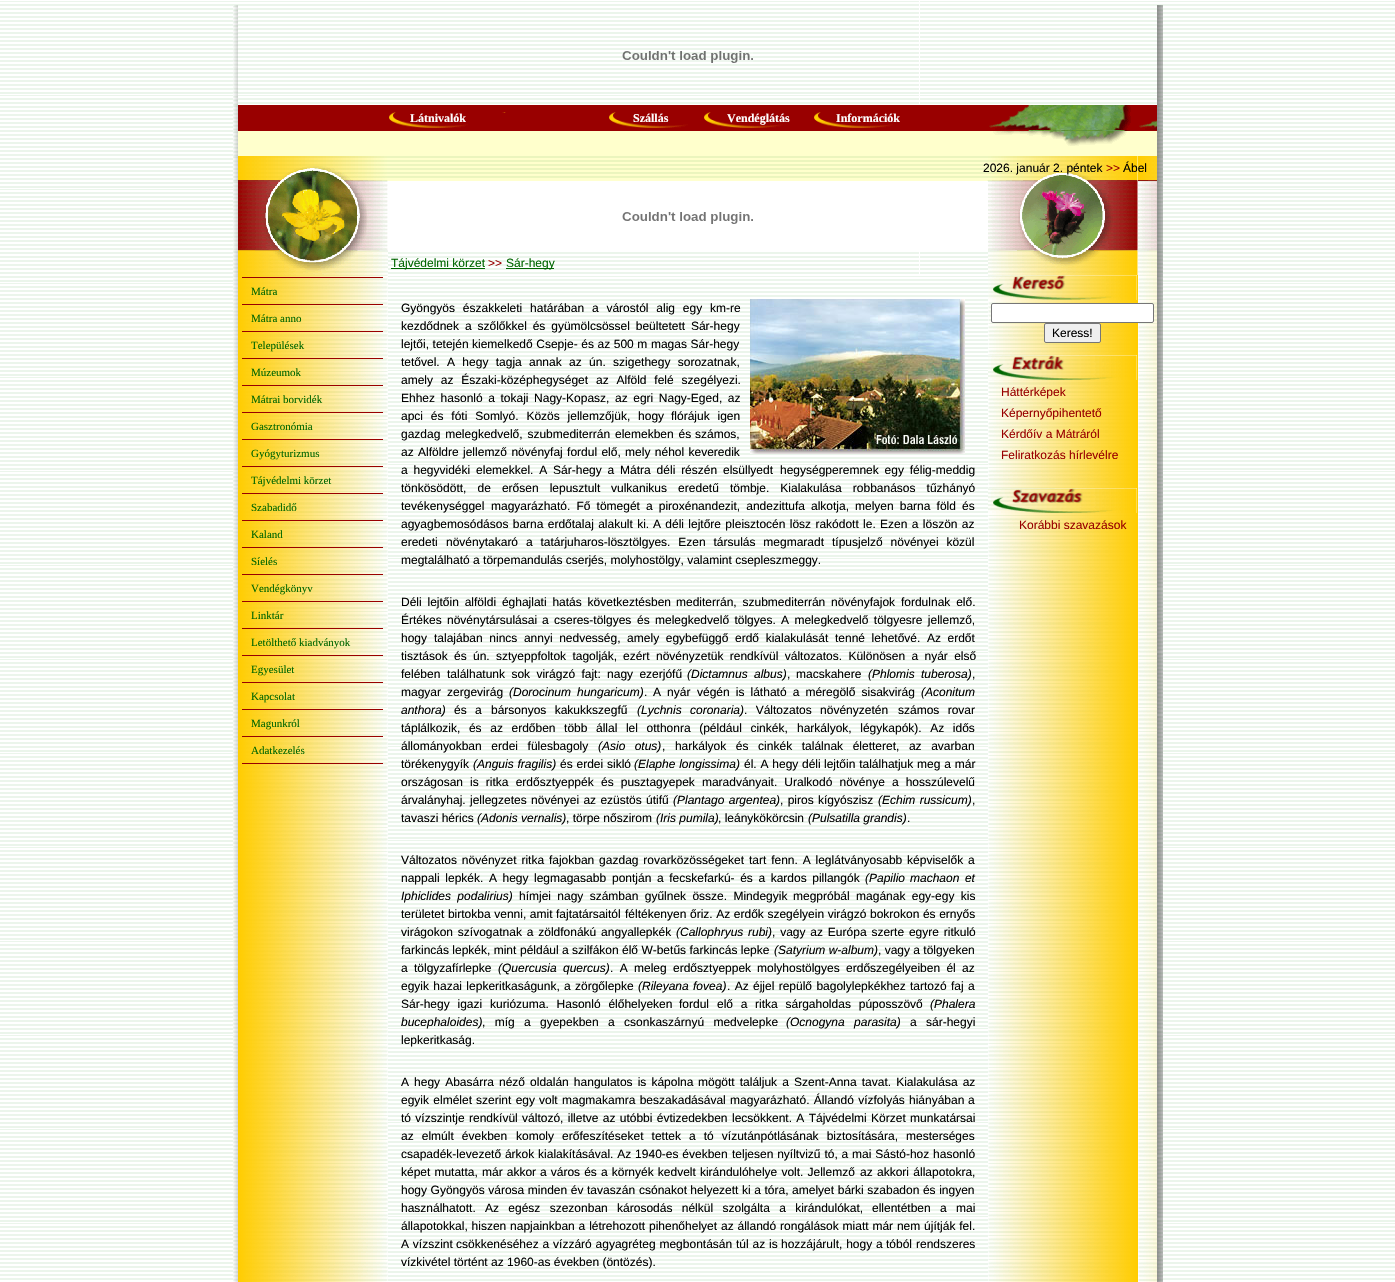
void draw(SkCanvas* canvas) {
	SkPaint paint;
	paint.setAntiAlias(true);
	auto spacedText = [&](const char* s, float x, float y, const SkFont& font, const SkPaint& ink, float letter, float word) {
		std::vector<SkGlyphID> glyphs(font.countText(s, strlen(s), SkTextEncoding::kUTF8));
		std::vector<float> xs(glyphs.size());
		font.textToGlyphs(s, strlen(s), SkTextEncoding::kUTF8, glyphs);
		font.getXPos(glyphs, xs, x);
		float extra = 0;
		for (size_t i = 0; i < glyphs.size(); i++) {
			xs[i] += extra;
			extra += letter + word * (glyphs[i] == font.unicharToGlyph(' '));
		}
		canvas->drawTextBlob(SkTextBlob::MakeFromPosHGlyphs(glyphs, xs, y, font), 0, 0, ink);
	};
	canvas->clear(0xffffffff);
	canvas->drawImageRect(SkImages::DeferredFromEncodedData(SkData::MakeFromFileName("img1.png")), SkRect::MakeXYWH(0, 1, 1395, 1279), SkSamplingOptions());
	canvas->drawImageRect(SkImages::DeferredFromEncodedData(SkData::MakeFromFileName("img2.png")), SkRect::MakeXYWH(233, 5, 5, 100), SkSamplingOptions());
	canvas->drawImageRect(SkImages::DeferredFromEncodedData(SkData::MakeFromFileName("img3.png")), SkRect::MakeXYWH(622, 51, 131, 12), SkSamplingOptions());
	canvas->drawImageRect(SkImages::DeferredFromEncodedData(SkData::MakeFromFileName("img4.png")), SkRect::MakeXYWH(1157, 5, 6, 100), SkSamplingOptions());
	canvas->drawImageRect(SkImages::DeferredFromEncodedData(SkData::MakeFromFileName("img5.png")), SkRect::MakeXYWH(233, 105, 5, 26), SkSamplingOptions());
	paint.setColor(0xff990000);
	canvas->drawRect(SkRect::MakeXYWH(238, 105, 750, 26), paint);
	canvas->drawImageRect(SkImages::DeferredFromEncodedData(SkData::MakeFromFileName("img6.png")), SkRect::MakeXYWH(988, 105, 169, 26), SkSamplingOptions());
	canvas->drawImageRect(SkImages::DeferredFromEncodedData(SkData::MakeFromFileName("img7.png")), SkRect::MakeXYWH(1157, 105, 6, 26), SkSamplingOptions());
	canvas->drawImageRect(SkImages::DeferredFromEncodedData(SkData::MakeFromFileName("img8.png")), SkRect::MakeXYWH(502, 112, 4, 1), SkSamplingOptions());
	canvas->drawImageRect(SkImages::DeferredFromEncodedData(SkData::MakeFromFileName("img9.png")), SkRect::MakeXYWH(389, 112, 79, 16), SkSamplingOptions());
	SkFont f1(fontMgr->matchFamilyStyle("Liberation Serif", SkFontStyle::Bold()), 12);
	f1.setSubpixel(true);
	paint.setColor(0xffffffff);
	canvas->drawString("Látnivalók", 410, 122, f1, paint);
	canvas->drawImageRect(SkImages::DeferredFromEncodedData(SkData::MakeFromFileName("img9.png")), SkRect::MakeXYWH(609, 112, 79, 16), SkSamplingOptions());
	canvas->drawString("Szállás", 633, 122, f1, paint);
	canvas->drawImageRect(SkImages::DeferredFromEncodedData(SkData::MakeFromFileName("img9.png")), SkRect::MakeXYWH(704, 112, 79, 16), SkSamplingOptions());
	canvas->drawString("Vendéglátás", 727, 122, f1, paint);
	canvas->drawImageRect(SkImages::DeferredFromEncodedData(SkData::MakeFromFileName("img9.png")), SkRect::MakeXYWH(814, 112, 79, 16), SkSamplingOptions());
	canvas->drawString("Információk", 836, 122, f1, paint);
	canvas->drawImageRect(SkImages::DeferredFromEncodedData(SkData::MakeFromFileName("img10.png")), SkRect::MakeXYWH(233, 131, 5, 25), SkSamplingOptions());
	paint.setColor(0xffffffcc);
	canvas->drawRect(SkRect::MakeXYWH(238, 131, 919, 25), paint);
	canvas->drawImageRect(SkImages::DeferredFromEncodedData(SkData::MakeFromFileName("img11.png")), SkRect::MakeXYWH(993, 131, 134, 15), SkSamplingOptions());
	canvas->drawImageRect(SkImages::DeferredFromEncodedData(SkData::MakeFromFileName("img12.png")), SkRect::MakeXYWH(1157, 131, 6, 25), SkSamplingOptions());
	canvas->drawImageRect(SkImages::DeferredFromEncodedData(SkData::MakeFromFileName("img10.png")), SkRect::MakeXYWH(233, 156, 5, 25), SkSamplingOptions());
	canvas->drawImageRect(SkImages::DeferredFromEncodedData(SkData::MakeFromFileName("img13.png")), SkRect::MakeXYWH(238, 156, 919, 25), SkSamplingOptions());
	SkFont f2(fontMgr->matchFamilyStyle("Liberation Sans", SkFontStyle::Normal()), 12);
	f2.setSubpixel(true);
	paint.setColor(0xff000000);
	canvas->drawString("2026. január 2. péntek", 983, 172, f2, paint);
	paint.setColor(0xff990000);
	canvas->drawString(">>", 1106, 172, f2, paint);
	paint.setColor(0xff000000);
	canvas->drawString("Ábel", 1123, 172, f2, paint);
	canvas->drawImageRect(SkImages::DeferredFromEncodedData(SkData::MakeFromFileName("img12.png")), SkRect::MakeXYWH(1157, 156, 6, 25), SkSamplingOptions());
	canvas->drawImageRect(SkImages::DeferredFromEncodedData(SkData::MakeFromFileName("img14.png")), SkRect::MakeXYWH(233, 181, 5, 70), SkSamplingOptions());
	canvas->drawImageRect(SkImages::DeferredFromEncodedData(SkData::MakeFromFileName("img15.png")), SkRect::MakeXYWH(238, 181, 150, 70), SkSamplingOptions());
	paint.setColor(0xffffffff);
	canvas->drawRect(SkRect::MakeXYWH(388, 182, 600, 68), paint);
	canvas->drawImageRect(SkImages::DeferredFromEncodedData(SkData::MakeFromFileName("img16.png")), SkRect::MakeXYWH(622, 212, 131, 12), SkSamplingOptions());
	canvas->drawImageRect(SkImages::DeferredFromEncodedData(SkData::MakeFromFileName("img17.png")), SkRect::MakeXYWH(988, 181, 169, 70), SkSamplingOptions());
	canvas->drawImageRect(SkImages::DeferredFromEncodedData(SkData::MakeFromFileName("img18.png")), SkRect::MakeXYWH(1157, 181, 6, 70), SkSamplingOptions());
	canvas->drawImageRect(SkImages::DeferredFromEncodedData(SkData::MakeFromFileName("img19.png")), SkRect::MakeXYWH(233, 251, 5, 24), SkSamplingOptions());
	canvas->drawImageRect(SkImages::DeferredFromEncodedData(SkData::MakeFromFileName("img20.png")), SkRect::MakeXYWH(238, 251, 150, 24), SkSamplingOptions());
	paint.setColor(0xff006600);
	canvas->drawRect(SkRect::MakeXYWH(391, 268, 94, 1), paint);
	canvas->drawString("Tájvédelmi körzet", 391, 267, f2, paint);
	paint.setColor(0xff990000);
	canvas->drawString(">>", 488, 267, f2, paint);
	paint.setColor(0xff006600);
	canvas->drawRect(SkRect::MakeXYWH(506, 268, 48, 1), paint);
	canvas->drawString("Sár-hegy", 506, 267, f2, paint);
	canvas->drawImageRect(SkImages::DeferredFromEncodedData(SkData::MakeFromFileName("img21.png")), SkRect::MakeXYWH(988, 251, 169, 24), SkSamplingOptions());
	canvas->drawImageRect(SkImages::DeferredFromEncodedData(SkData::MakeFromFileName("img22.png")), SkRect::MakeXYWH(1157, 251, 6, 24), SkSamplingOptions());
	canvas->drawImageRect(SkImages::DeferredFromEncodedData(SkData::MakeFromFileName("img23.png")), SkRect::MakeXYWH(233, 275, 5, 1007), SkSamplingOptions());
	canvas->drawImageRect(SkImages::DeferredFromEncodedData(SkData::MakeFromFileName("img24.png")), SkRect::MakeXYWH(238, 275, 150, 1007), SkSamplingOptions());
	paint.setColor(0xff990000);
	canvas->drawRect(SkRect::MakeXYWH(242, 277, 141, 1), paint);
	SkFont f3(fontMgr->matchFamilyStyle("Liberation Serif", SkFontStyle::Normal()), 11);
	f3.setSubpixel(true);
	paint.setColor(0xff006600);
	canvas->drawString("Mátra", 251, 295, f3, paint);
	paint.setColor(0xff990000);
	canvas->drawRect(SkRect::MakeXYWH(242, 304, 141, 1), paint);
	paint.setColor(0xff006600);
	canvas->drawString("Mátra anno", 251, 322, f3, paint);
	paint.setColor(0xff990000);
	canvas->drawRect(SkRect::MakeXYWH(242, 331, 141, 1), paint);
	paint.setColor(0xff006600);
	canvas->drawString("Települések", 251, 349, f3, paint);
	paint.setColor(0xff990000);
	canvas->drawRect(SkRect::MakeXYWH(242, 358, 141, 1), paint);
	paint.setColor(0xff006600);
	canvas->drawString("Múzeumok", 251, 376, f3, paint);
	paint.setColor(0xff990000);
	canvas->drawRect(SkRect::MakeXYWH(242, 385, 141, 1), paint);
	paint.setColor(0xff006600);
	canvas->drawString("Mátrai borvidék", 251, 403, f3, paint);
	paint.setColor(0xff990000);
	canvas->drawRect(SkRect::MakeXYWH(242, 412, 141, 1), paint);
	paint.setColor(0xff006600);
	canvas->drawString("Gasztronómia", 251, 430, f3, paint);
	paint.setColor(0xff990000);
	canvas->drawRect(SkRect::MakeXYWH(242, 439, 141, 1), paint);
	paint.setColor(0xff006600);
	canvas->drawString("Gyógyturizmus", 251, 457, f3, paint);
	paint.setColor(0xff990000);
	canvas->drawRect(SkRect::MakeXYWH(242, 466, 141, 1), paint);
	paint.setColor(0xff006600);
	canvas->drawString("Tájvédelmi körzet", 251, 484, f3, paint);
	paint.setColor(0xff990000);
	canvas->drawRect(SkRect::MakeXYWH(242, 493, 141, 1), paint);
	paint.setColor(0xff006600);
	canvas->drawString("Szabadidő", 251, 511, f3, paint);
	paint.setColor(0xff990000);
	canvas->drawRect(SkRect::MakeXYWH(242, 520, 141, 1), paint);
	paint.setColor(0xff006600);
	canvas->drawString("Kaland", 251, 538, f3, paint);
	paint.setColor(0xff990000);
	canvas->drawRect(SkRect::MakeXYWH(242, 547, 141, 1), paint);
	paint.setColor(0xff006600);
	canvas->drawString("Síelés", 251, 565, f3, paint);
	paint.setColor(0xff990000);
	canvas->drawRect(SkRect::MakeXYWH(242, 574, 141, 1), paint);
	paint.setColor(0xff006600);
	canvas->drawString("Vendégkönyv", 251, 592, f3, paint);
	paint.setColor(0xff990000);
	canvas->drawRect(SkRect::MakeXYWH(242, 601, 141, 1), paint);
	paint.setColor(0xff006600);
	canvas->drawString("Linktár", 251, 619, f3, paint);
	paint.setColor(0xff990000);
	canvas->drawRect(SkRect::MakeXYWH(242, 628, 141, 1), paint);
	paint.setColor(0xff006600);
	canvas->drawString("Letölthető kiadványok", 251, 646, f3, paint);
	paint.setColor(0xff990000);
	canvas->drawRect(SkRect::MakeXYWH(242, 655, 141, 1), paint);
	paint.setColor(0xff006600);
	canvas->drawString("Egyesület", 251, 673, f3, paint);
	paint.setColor(0xff990000);
	canvas->drawRect(SkRect::MakeXYWH(242, 682, 141, 1), paint);
	paint.setColor(0xff006600);
	canvas->drawString("Kapcsolat", 251, 700, f3, paint);
	paint.setColor(0xff990000);
	canvas->drawRect(SkRect::MakeXYWH(242, 709, 141, 1), paint);
	paint.setColor(0xff006600);
	canvas->drawString("Magunkról", 251, 727, f3, paint);
	paint.setColor(0xff990000);
	canvas->drawRect(SkRect::MakeXYWH(242, 736, 141, 1), paint);
	paint.setColor(0xff006600);
	canvas->drawString("Adatkezelés", 251, 754, f3, paint);
	paint.setColor(0xff990000);
	canvas->drawRect(SkRect::MakeXYWH(242, 763, 141, 1), paint);
	canvas->drawImageRect(SkImages::DeferredFromEncodedData(SkData::MakeFromFileName("img25.png")), SkRect::MakeXYWH(388, 276, 600, 1005), SkSamplingOptions());
	paint.setColor(0xff000000);
	spacedText("Gyöngyös északkeleti határában a várostól alig egy km-re", 401, 312, f2, paint, 0, 4.5);
	canvas->drawImageRect(SkImages::DeferredFromEncodedData(SkData::MakeFromFileName("img26.png")), SkRect::MakeXYWH(750, 299, 215, 155), SkSamplingOptions());
	canvas->drawString("kezdődnek", 401, 330, f2, paint);
	spacedText("a szőlőkkel és gyümölcsössel beültetett Sár-hegy", 465, 330, f2, paint, 0, 2.5);
	spacedText("lejtői, tetején", 401, 348, f2, paint, 0, 0.25);
	spacedText("kiemelkedő Csepje- és az 500 m magas Sár-hegy", 472, 348, f2, paint, 0, 0.25);
	spacedText("tetővel. A hegy tagja", 401, 366, f2, paint, 0, 4);
	spacedText("annak az ún. szigethegy sorozatnak,", 529, 366, f2, paint, 0, 4);
	spacedText("amely az Északi-középhegységet", 401, 384, f2, paint, 0, 4.5);
	spacedText("az Alföld felé szegélyezi.", 596, 384, f2, paint, 0, 4.5);
	spacedText("Ehhez hasonló a tokaji Nagy-Kopasz,", 401, 402, f2, paint, 0, 2.25);
	spacedText("az egri Nagy-Eged, az", 615, 402, f2, paint, 0, 2.25);
	spacedText("apci és fóti Somlyó. Közös jellemzőjük, hogy", 401, 420, f2, paint, 0, 4.5);
	spacedText("flórájuk igen", 671, 420, f2, paint, 0, 4.5);
	spacedText("gazdag melegkedvelő, szubmediterrán elemekben és", 401, 438, f2, paint, 0, 1.5);
	canvas->drawString("számos,", 695, 438, f2, paint);
	spacedText("az Alföldre jellemző növényfaj fordul elő, mely néhol keveredik", 401, 456, f2, paint, 0, 1);
	spacedText("a hegyvidéki elemekkel. A Sár-hegy a Mátra déli részén elsüllyedt", 401, 474, f2, paint, 0, 2.5);
	spacedText("hegységperemnek egy félig-meddig", 780, 474, f2, paint, 0, 2.5);
	spacedText("tönkösödött, de erősen lepusztult", 401, 492, f2, paint, 0, 7.75);
	spacedText("vulkanikus eredetű tömbje. Kialakulása robbanásos tűzhányó", 611, 492, f2, paint, 0, 7.75);
	canvas->drawString("tevékenységgel", 401, 510, f2, paint);
	spacedText("magyarázható. Fő tömegét a piroxénandezit, andezittufa alkotja,", 491, 510, f2, paint, 0, 2.75);
	spacedText("melyen barna föld és", 855, 510, f2, paint, 0, 2.75);
	spacedText("agyagbemosódásos barna erdőtalaj alakult ki.", 401, 528, f2, paint, 0, 1);
	spacedText("A déli lejtőre pleisztocén lösz rakódott le. Ezen a löszön az", 653, 528, f2, paint, 0, 1);
	canvas->drawString("eredeti", 401, 546, f2, paint);
	spacedText("növénytakaró a tatárjuharos-lösztölgyes. Ezen társulás megmaradt", 446, 546, f2, paint, 0, 4.5);
	spacedText("típusjelző növényei közül", 832, 546, f2, paint, 0, 4.5);
	canvas->drawString("megtalálható a törpemandulás cserjés, molyhostölgy, valamint csepleszmeggy.", 401, 564, f2, paint);
	spacedText("Déli lejtőin alföldi éghajlati hatás következtésben", 401, 606, f2, paint, 0, 2.5);
	spacedText("mediterrán, szubmediterrán növényfajok fordulnak elő.", 676, 606, f2, paint, 0, 2.5);
	spacedText("Értékes növénytársulásai", 401, 624, f2, paint, 0, 2);
	spacedText("a cseres-tölgyes", 542, 624, f2, paint, 0, 2);
	spacedText("és melegkedvelő tölgyes. A melegkedvelő tölgyesre jellemző,", 637, 624, f2, paint, 0, 2);
	canvas->drawString("hogy", 401, 642, f2, paint);
	spacedText("talajában nincs annyi nedvesség, amely egybefüggő erdő kialakulását", 434, 642, f2, paint, 0, 3.25);
	spacedText("tenné lehetővé. Az erdőt", 835, 642, f2, paint, 0, 3.25);
	spacedText("tisztások és ún. sztyeppfoltok tagolják,", 401, 660, f2, paint, 0, 3);
	spacedText("ezért növényzetük rendkívül változatos. Különösen a nyár első", 623, 660, f2, paint, 0, 3);
	canvas->drawString("felében", 401, 678, f2, paint);
	spacedText("találhatunk sok virágzó fajt: nagy ezerjófű", 447, 678, f2, paint, 0, 3);
	SkFont f4(fontMgr->matchFamilyStyle("Liberation Sans", SkFontStyle::Italic()), 12);
	f4.setSubpixel(true);
	spacedText("(Dictamnus albus)", 687, 678, f4, paint, 0, 3);
	canvas->drawString(",", 787, 678, f2, paint);
	canvas->drawString("macskahere", 796, 678, f2, paint);
	spacedText("(Phlomis tuberosa)", 868, 678, f4, paint, 0, 3);
	canvas->drawString(",", 972, 678, f2, paint);
	spacedText("magyar zergevirág", 401, 696, f2, paint, 0, 2.75);
	canvas->drawString("(Dorocinum", 509, 696, f4, paint);
	canvas->drawString("hungaricum)", 577, 696, f4, paint);
	canvas->drawString(".", 644, 696, f2, paint);
	spacedText("A nyár", 653, 696, f2, paint, 0, 2.75);
	spacedText("végén is látható a méregölő sisakvirág", 697, 696, f2, paint, 0, 2.75);
	canvas->drawString("(Aconitum", 921, 696, f4, paint);
	canvas->drawString("anthora)", 401, 714, f4, paint);
	spacedText("és a", 454, 714, f2, paint, 0, 5);
	spacedText("bársonyos kakukkszegfű", 491, 714, f2, paint, 0, 5);
	spacedText("(Lychnis coronaria)", 637, 714, f4, paint, 0, 5);
	spacedText(". Változatos növényzetén", 744, 714, f2, paint, 0, 5);
	spacedText("számos rovar", 898, 714, f2, paint, 0, 5);
	spacedText("táplálkozik, és az erdőben több állal lel otthonra (például cinkék,", 401, 732, f2, paint, 0, 5.25);
	spacedText("harkályok, légykapók). Az idős", 797, 732, f2, paint, 0, 5.25);
	spacedText("állományokban erdei fülesbagoly", 401, 750, f2, paint, 0, 6.25);
	spacedText("(Asio otus)", 598, 750, f4, paint, 0, 6);
	spacedText(", harkályok és cinkék találnak életteret, az avarban", 662, 750, f2, paint, 0, 6.25);
	canvas->drawString("törékenygyík", 401, 768, f2, paint);
	spacedText("(Anguis fragilis)", 473, 768, f4, paint, 0, 0.5);
	spacedText("és erdei sikló", 560, 768, f2, paint, 0, 0.5);
	spacedText("(Elaphe longissima)", 634, 768, f4, paint, 0, 0.5);
	spacedText("él. A hegy", 744, 768, f2, paint, 0, 0.5);
	canvas->drawString("déli", 802, 768, f2, paint);
	spacedText("lejtőin találhatjuk meg a már", 824, 768, f2, paint, 0, 0.5);
	spacedText("országosan is ritka erdősztyeppék", 401, 786, f2, paint, 0, 3.75);
	spacedText("és pusztagyepek maradványait. Uralkodó növénye a hosszúlevelű", 601, 786, f2, paint, 0, 3.75);
	canvas->drawString("árvalányhaj.", 401, 804, f2, paint);
	spacedText("jellegzetes növényei az ezüstös útifű", 470, 804, f2, paint, 0, 1);
	spacedText("(Plantago argentea)", 673, 804, f4, paint, 0, 1);
	spacedText(", piros", 780, 804, f2, paint, 0, 1);
	canvas->drawString("kígyószisz", 818, 804, f2, paint);
	spacedText("(Echim russicum)", 878, 804, f4, paint, 0, 1);
	canvas->drawString(",", 972, 804, f2, paint);
	canvas->drawString("tavaszi hérics", 401, 822, f2, paint);
	canvas->drawString("(Adonis vernalis)", 477, 822, f4, paint);
	canvas->drawString(", törpe nőszirom", 566, 822, f2, paint);
	canvas->drawString("(Iris pumila)", 656, 822, f4, paint);
	canvas->drawString(", leánykökörcsin", 718, 822, f2, paint);
	canvas->drawString("(Pulsatilla grandis)", 808, 822, f4, paint);
	canvas->drawString(".", 907, 822, f2, paint);
	spacedText("Változatos növényzet ritka fajokban gazdag rovarközösségeket", 401, 864, f2, paint, 0, 1.5);
	spacedText("tart fenn. A leglátványosabb képviselők a", 749, 864, f2, paint, 0, 1.5);
	spacedText("nappali lepkék. A hegy", 401, 882, f2, paint, 0, 2.25);
	canvas->drawString("legmagasabb", 534, 882, f2, paint);
	spacedText("pontján a fecskefarkú- és a kardos pillangók", 612, 882, f2, paint, 0, 2.25);
	canvas->drawString("(Papilio", 865, 882, f4, paint);
	spacedText("machaon et", 910, 882, f4, paint, 0, 2.25);
	spacedText("Iphiclides podalirius)", 401, 900, f4, paint, 0, 3);
	spacedText("hímjei nagy számban gyűlnek össze. Mindegyik", 519, 900, f2, paint, 0, 3);
	spacedText("megpróbál magának egy-egy kis", 793, 900, f2, paint, 0, 3);
	spacedText("területet birtokba venni, amit", 401, 918, f2, paint, 0, 0.25);
	canvas->drawString("fajtatársaitól", 556, 918, f2, paint);
	spacedText("féltékenyen őriz. Az erdők szegélyein virágzó bokrokon és ernyős", 625, 918, f2, paint, 0, 0.25);
	spacedText("virágokon szívogatnak a zöldfonákú angyallepkék", 401, 936, f2, paint, 0, 1.5);
	canvas->drawString("(Callophryus", 676, 936, f4, paint);
	canvas->drawString("rubi)", 748, 936, f4, paint);
	spacedText(", vagy az Európa szerte egyre ritkuló", 772, 936, f2, paint, 0, 1.5);
	canvas->drawString("farkincás lepkék, mint", 401, 954, f2, paint);
	canvas->drawString("például", 520, 954, f2, paint);
	canvas->drawString("a szilfákon élő W-betűs farkincás lepke", 562, 954, f2, paint);
	canvas->drawString("(Satyrium w-album)", 774, 954, f4, paint);
	canvas->drawString(", vagy a tölgyeken", 878, 954, f2, paint);
	spacedText("a tölgyzafírlepke", 401, 972, f2, paint, 0, 3);
	spacedText("(Quercusia quercus)", 498, 972, f4, paint, 0, 3);
	spacedText(". A meleg erdősztyeppek", 610, 972, f2, paint, 0, 3);
	spacedText("molyhostölgyes erdőszegélyeiben él az", 757, 972, f2, paint, 0, 3);
	spacedText("egyik hazai lepkeritkaságunk,", 401, 990, f2, paint, 0, 1);
	spacedText("a zörgőlepke", 564, 990, f2, paint, 0, 1);
	spacedText("(Rileyana fovea)", 638, 990, f4, paint, 0, 1);
	spacedText(". Az éjjel repülő bagolylepkékhez", 727, 990, f2, paint, 0, 1);
	spacedText("tartozó faj a", 910, 990, f2, paint, 0, 1);
	spacedText("Sár-hegy igazi kuriózuma. Hasonló élőhelyeken", 401, 1008, f2, paint, 0, 4.5);
	canvas->drawString("fordul", 679, 1008, f2, paint);
	spacedText("elő a", 717, 1008, f2, paint, 0, 4.5);
	spacedText("ritka sárgaholdas púposszövő", 755, 1008, f2, paint, 0, 4.5);
	canvas->drawString("(Phalera", 930, 1008, f4, paint);
	canvas->drawString("bucephaloides)", 401, 1026, f4, paint);
	spacedText(", míg a", 482, 1026, f2, paint, 0, 6);
	spacedText("gyepekben a csonkaszárnyú medvelepke", 540, 1026, f2, paint, 0, 6);
	spacedText("(Ocnogyna parasita)", 786, 1026, f4, paint, 0, 6);
	spacedText("a sár-hegyi", 910, 1026, f2, paint, 0, 6);
	canvas->drawString("lepkeritkaság.", 401, 1044, f2, paint);
	spacedText("A hegy Abasárra néző oldalán hangulatos is kápolna", 401, 1086, f2, paint, 0, 1.75);
	spacedText("mögött találjuk a Szent-Anna tavat. Kialakulása az", 698, 1086, f2, paint, 0, 1.75);
	spacedText("egyik elmélet", 401, 1104, f2, paint, 0, 1);
	spacedText("szerint egy", 476, 1104, f2, paint, 0, 1);
	spacedText("volt magmakamra beszakadásával magyarázható. Állandó vízfolyás", 539, 1104, f2, paint, 0, 1);
	canvas->drawString("hiányában", 909, 1104, f2, paint);
	canvas->drawString("a", 968, 1104, f2, paint);
	spacedText("tó vízszintje rendkívül változó, illetve az utóbbi évtizedekben", 401, 1122, f2, paint, 0, 1);
	spacedText("lecsökkent. A Tájvédelmi Körzet munkatársai", 732, 1122, f2, paint, 0, 1);
	spacedText("az elmúlt években", 401, 1140, f2, paint, 0, 4.75);
	spacedText("komoly erőfeszítéseket tettek a tó vízutánpótlásának biztosítására,", 516, 1140, f2, paint, 0, 4.75);
	canvas->drawString("mesterséges", 906, 1140, f2, paint);
	spacedText("csapadék-levezető árkok kialakításával. Az 1940-es években", 401, 1158, f2, paint, 0, 0.5);
	spacedText("teljesen nyíltvizű tó, a mai Sástó-hoz hasonló", 732, 1158, f2, paint, 0, 0.5);
	spacedText("képet mutatta,", 401, 1176, f2, paint, 0, 0.75);
	spacedText("már akkor", 482, 1176, f2, paint, 0, 0.75);
	spacedText("a város és a környék kedvelt kirándulóhelye volt. Jellemző", 540, 1176, f2, paint, 0, 0.75);
	spacedText("az akkori állapotokra,", 860, 1176, f2, paint, 0, 1);
	spacedText("hogy Gyöngyös városa minden év tavaszán", 401, 1194, f2, paint, 0, 0.25);
	canvas->drawString("csónakot helyezett", 639, 1194, f2, paint);
	spacedText("ki a tóra, amelyet bárki szabadon és ingyen", 742, 1194, f2, paint, 0, 0.25);
	canvas->drawString("használhatott.", 401, 1212, f2, paint);
	spacedText("Az egész szezonban károsodás nélkül szolgálta a kirándulókat,", 485, 1212, f2, paint, 0, 6);
	canvas->drawString("ellentétben", 872, 1212, f2, paint);
	spacedText("a mai", 940, 1212, f2, paint, 0, 6);
	spacedText("állapotokkal, hiszen napjainkban a létrehozott pihenőhelyet", 401, 1230, f2, paint, 0, 0.5);
	spacedText("az állandó rongálások miatt már nem újítják fel.", 721, 1230, f2, paint, 0, 0.5);
	spacedText("A vízszint", 401, 1248, f2, paint, 0, 0.5);
	spacedText("csökkenéséhez a vízzáró agyagréteg megbontásán túl az is", 456, 1248, f2, paint, 0, 0.5);
	spacedText("hozzájárult, hogy a", 781, 1248, f2, paint, 0, 0.5);
	canvas->drawString("tóból", 886, 1248, f2, paint);
	canvas->drawString("rendszeres", 916, 1248, f2, paint);
	canvas->drawString("vízkivétel történt az 1960-as években (öntözés).", 401, 1266, f2, paint);
	canvas->drawImageRect(SkImages::DeferredFromEncodedData(SkData::MakeFromFileName("img27.png")), SkRect::MakeXYWH(988, 275, 169, 1007), SkSamplingOptions());
	canvas->drawImageRect(SkImages::DeferredFromEncodedData(SkData::MakeFromFileName("img28.png")), SkRect::MakeXYWH(988, 275, 149, 25), SkSamplingOptions());
	paint.setColor(0xffffffff);
	canvas->drawRoundRect(SkRect::MakeXYWH(991.5, 303.5, 162, 19), 1.5, 1.5, paint);
	paint.setStroke(true);
	paint.setStrokeWidth(1);
	paint.setColor(0xff767676);
	canvas->drawRoundRect(SkRect::MakeXYWH(991.5, 303.5, 162, 19), 1.5, 1.5, paint);
	paint.setStroke(false);
	paint.setColor(0xffefefef);
	canvas->drawRoundRect(SkRect::MakeXYWH(1044.5, 323.5, 56, 19), 1.5, 1.5, paint);
	paint.setStroke(true);
	paint.setColor(0xff767676);
	canvas->drawRoundRect(SkRect::MakeXYWH(1044.5, 323.5, 56, 19), 1.5, 1.5, paint);
	paint.setStroke(false);
	paint.setColor(0xff000000);
	canvas->drawString("Keress!", 1052, 337, f2, paint);
	canvas->drawImageRect(SkImages::DeferredFromEncodedData(SkData::MakeFromFileName("img29.png")), SkRect::MakeXYWH(988, 355, 149, 25), SkSamplingOptions());
	paint.setColor(0xff990000);
	canvas->drawString("Háttérképek", 1001, 396, f2, paint);
	canvas->drawString("Képernyőpihentető", 1001, 417, f2, paint);
	canvas->drawString("Kérdőív a Mátráról", 1001, 438, f2, paint);
	canvas->drawString("Feliratkozás hírlevélre", 1001, 459, f2, paint);
	canvas->drawImageRect(SkImages::DeferredFromEncodedData(SkData::MakeFromFileName("img30.png")), SkRect::MakeXYWH(988, 488, 149, 25), SkSamplingOptions());
	canvas->drawString("Korábbi szavazások", 1019, 529, f2, paint);
	canvas->drawImageRect(SkImages::DeferredFromEncodedData(SkData::MakeFromFileName("img31.png")), SkRect::MakeXYWH(1157, 275, 6, 1007), SkSamplingOptions());
}
